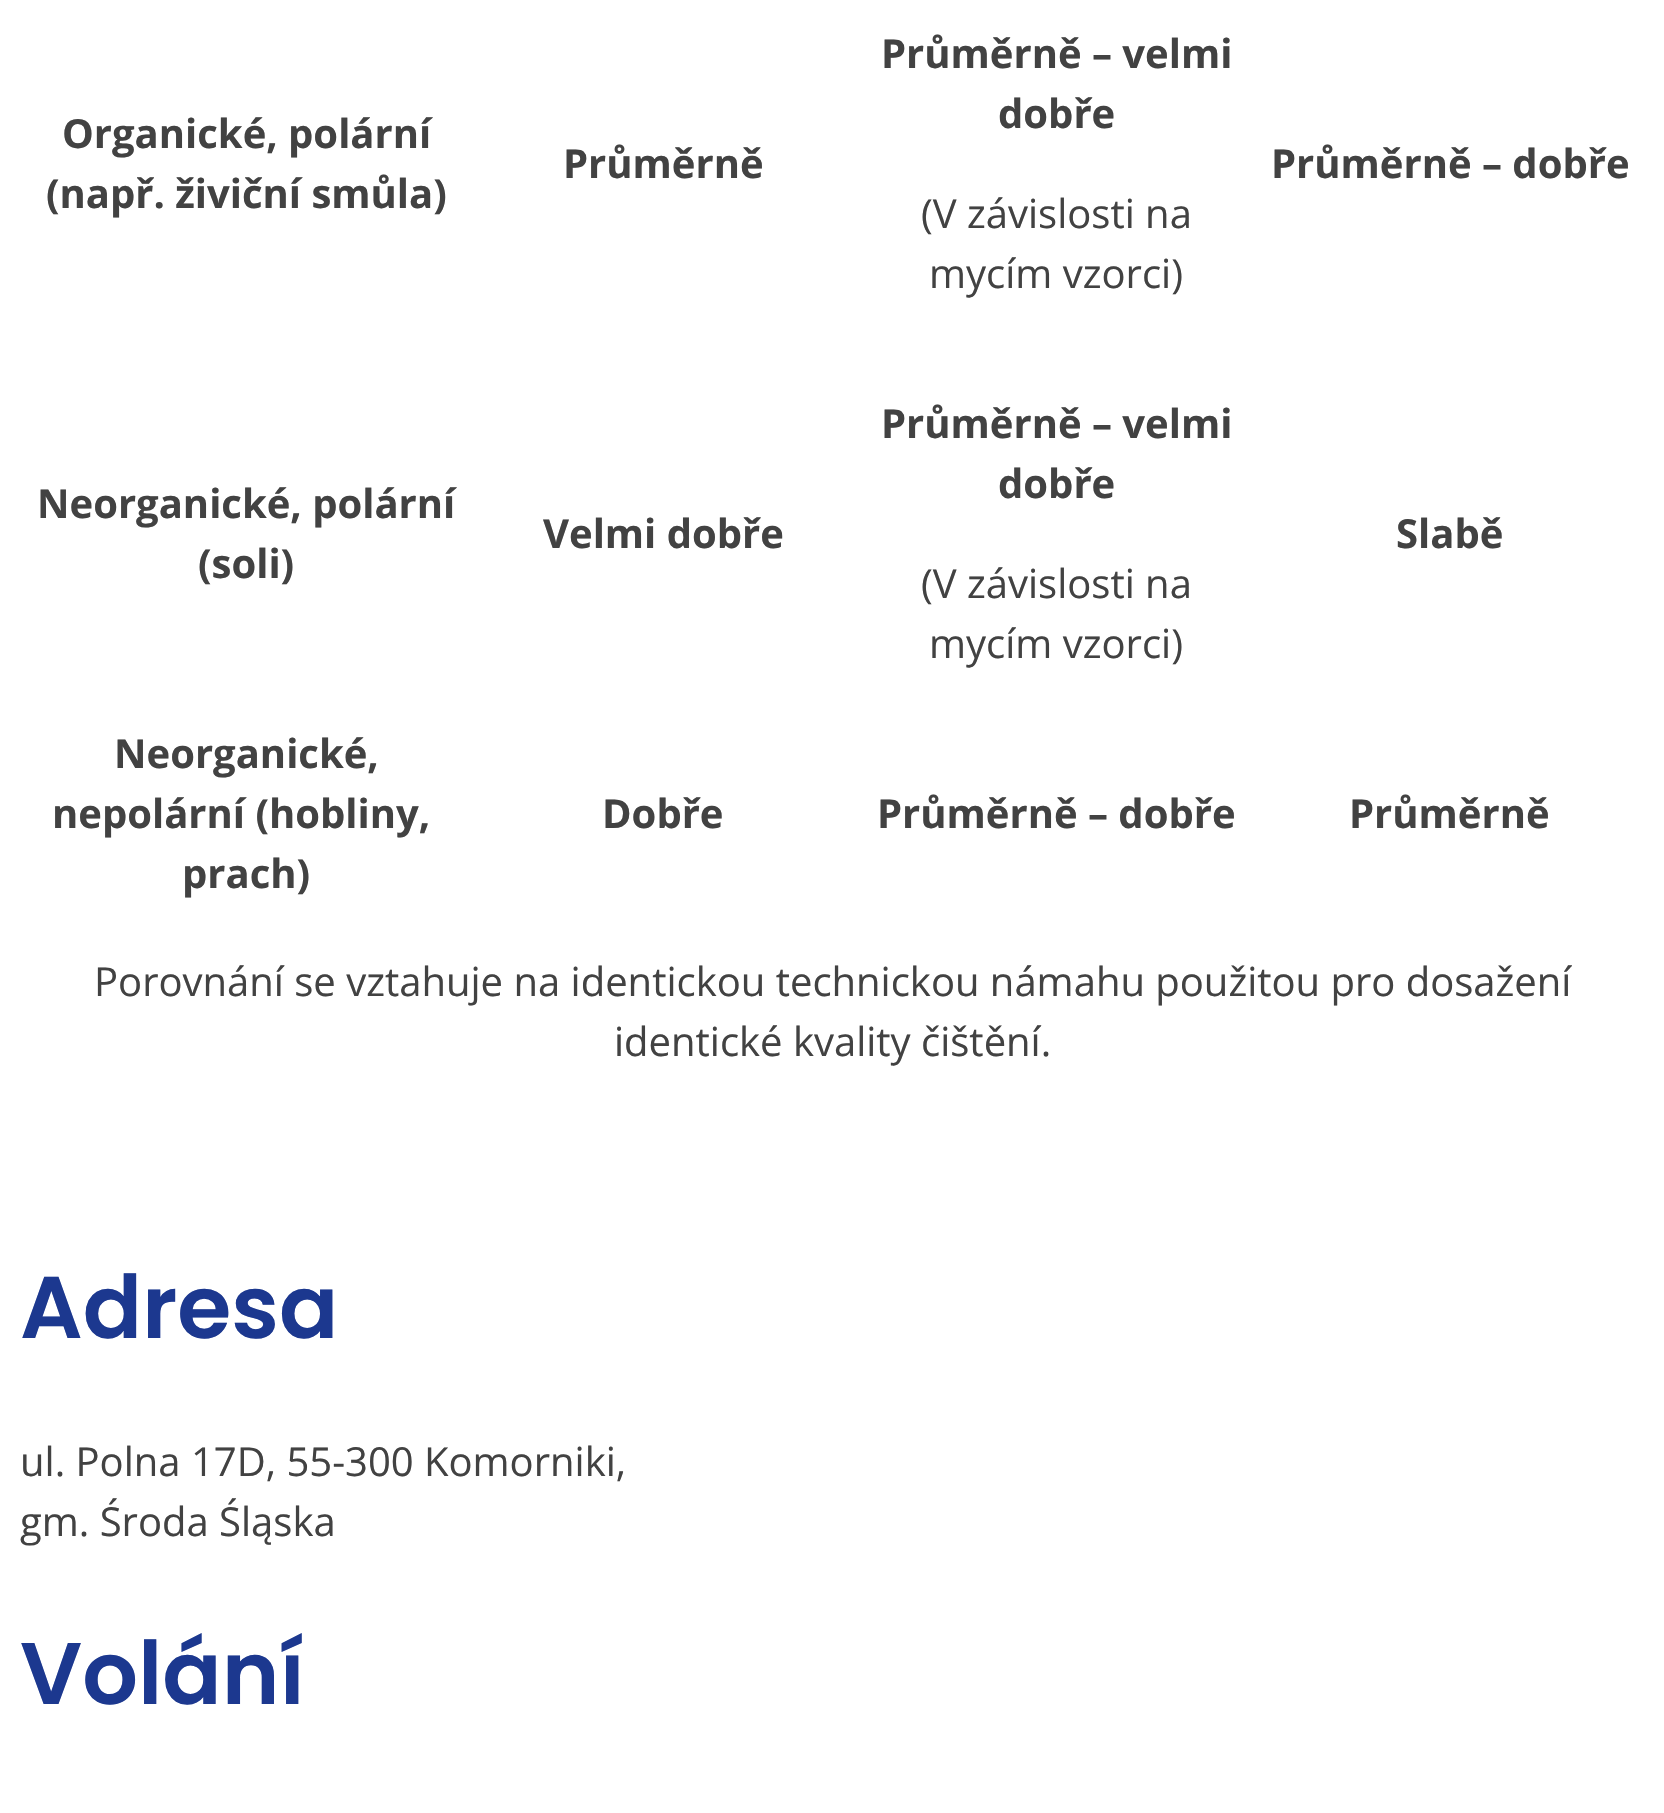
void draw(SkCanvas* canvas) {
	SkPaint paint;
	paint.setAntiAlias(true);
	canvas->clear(0xffffffff);
	SkFont f1(fontMgr->matchFamilyStyle("Open Sans", SkFontStyle::Bold()), 40);
	f1.setSubpixel(true);
	paint.setColor(0xff424242);
	canvas->drawString("Organické, polární", 62, 148, f1, paint);
	canvas->drawString("(např. živiční smůla)", 46, 208, f1, paint);
	canvas->drawString("Průměrně", 563, 178, f1, paint);
	canvas->drawString("Průměrně – velmi", 881, 68, f1, paint);
	canvas->drawString("dobře", 998, 128, f1, paint);
	SkFont f2(fontMgr->matchFamilyStyle("Open Sans", SkFontStyle::Normal()), 40);
	f2.setSubpixel(true);
	canvas->drawString("(V závislosti na", 921, 228, f2, paint);
	canvas->drawString("mycím vzorci)", 929, 288, f2, paint);
	canvas->drawString("Průměrně – dobře", 1271, 178, f1, paint);
	canvas->drawString("Neorganické, polární", 37, 518, f1, paint);
	canvas->drawString("(soli)", 198, 578, f1, paint);
	canvas->drawString("Velmi dobře", 543, 548, f1, paint);
	canvas->drawString("Průměrně – velmi", 881, 438, f1, paint);
	canvas->drawString("dobře", 998, 498, f1, paint);
	canvas->drawString("(V závislosti na", 921, 598, f2, paint);
	canvas->drawString("mycím vzorci)", 929, 658, f2, paint);
	canvas->drawString("Slabě", 1396, 548, f1, paint);
	canvas->drawString("Neorganické,", 114, 768, f1, paint);
	canvas->drawString("nepolární (hobliny,", 52, 828, f1, paint);
	canvas->drawString("prach)", 182, 888, f1, paint);
	canvas->drawString("Dobře", 602, 828, f1, paint);
	canvas->drawString("Průměrně – dobře", 877, 828, f1, paint);
	canvas->drawString("Průměrně", 1349, 828, f1, paint);
	canvas->drawString("Porovnání se vztahuje na identickou technickou námahu použitou pro dosažení", 94, 996, f2, paint);
	canvas->drawString("identické kvality čištění.", 614, 1056, f2, paint);
	SkFont f3(fontMgr->matchFamilyStyle("Poppins", SkFontStyle(600, SkFontStyle::kNormal_Width, SkFontStyle::kUpright_Slant)), 87.5);
	f3.setSubpixel(true);
	paint.setColor(0xff1c388f);
	canvas->drawString("Adresa", 20, 1338, f3, paint);
	paint.setColor(0xff424242);
	canvas->drawString("ul. Polna 17D, 55-300 Komorniki,", 20, 1476, f2, paint);
	canvas->drawString("gm. Środa Śląska", 20, 1536, f2, paint);
	paint.setColor(0xff1c388f);
	canvas->drawString("Volání", 20, 1704, f3, paint);
}
